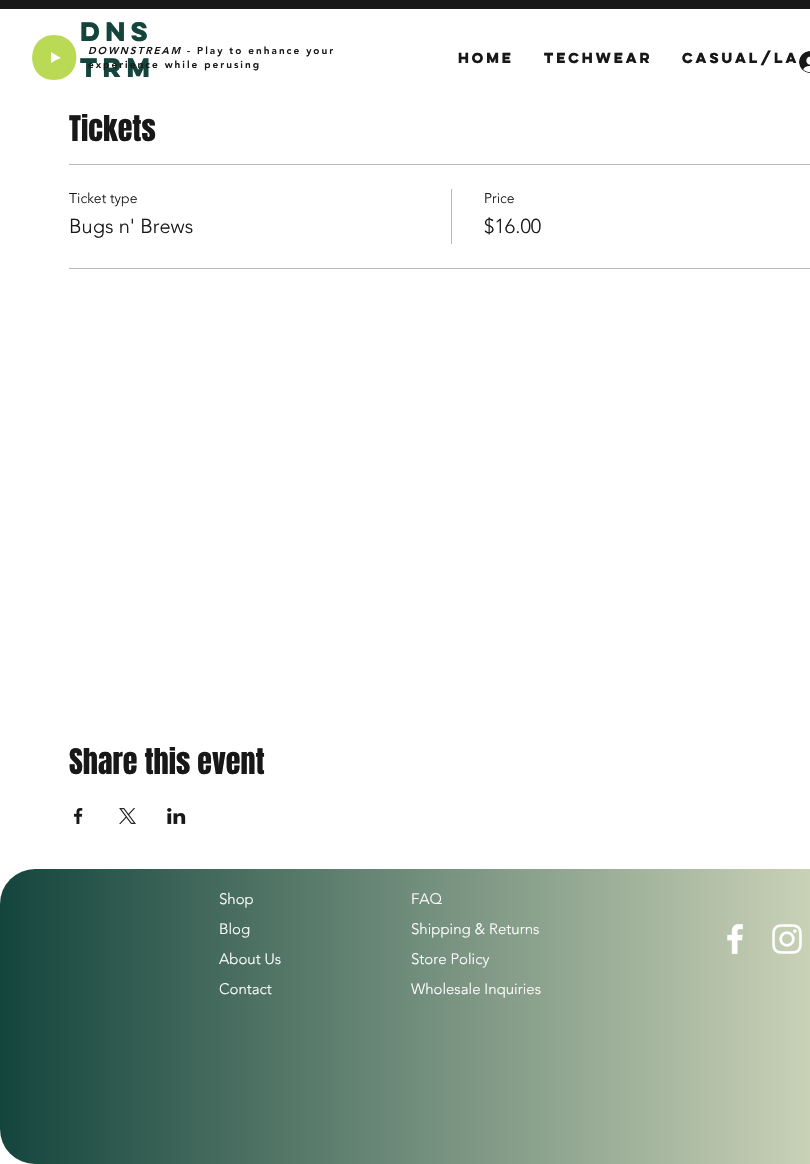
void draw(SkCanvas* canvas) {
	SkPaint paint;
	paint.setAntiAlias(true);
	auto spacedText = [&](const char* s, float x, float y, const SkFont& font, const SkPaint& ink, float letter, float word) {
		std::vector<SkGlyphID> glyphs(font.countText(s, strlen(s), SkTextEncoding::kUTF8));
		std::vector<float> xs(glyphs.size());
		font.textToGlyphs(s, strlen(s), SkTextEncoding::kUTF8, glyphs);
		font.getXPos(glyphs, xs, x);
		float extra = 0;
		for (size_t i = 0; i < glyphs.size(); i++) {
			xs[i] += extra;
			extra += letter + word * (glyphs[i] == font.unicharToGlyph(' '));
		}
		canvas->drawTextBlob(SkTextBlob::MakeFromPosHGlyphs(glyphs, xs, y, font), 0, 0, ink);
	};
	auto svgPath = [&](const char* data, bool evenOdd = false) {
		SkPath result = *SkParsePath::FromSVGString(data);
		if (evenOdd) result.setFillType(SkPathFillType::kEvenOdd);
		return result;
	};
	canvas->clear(0xffffffff);
	paint.setColor(0xff181818);
	canvas->drawRect(SkRect::MakeXYWH(0, 0, 810, 9), paint);
	paint.setColor(0xffbada55);
	canvas->drawPath(svgPath("M56 60L51 63V52L61 58ZM54 35C25 35 25 80 54 80C84 80 84 35 54 35Z"), paint);
	SkFont f1(fontMgr->matchFamilyStyle("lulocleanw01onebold", SkFontStyle::Bold()), 24);
	f1.setSubpixel(true);
	paint.setColor(0xff14453d);
	canvas->drawString("DNS", 80, 41, f1, paint);
	canvas->drawString("TRM", 80, 77, f1, paint);
	canvas->drawImageRect(SkImages::DeferredFromEncodedData(SkData::MakeFromFileName("img1.png")), SkRect::MakeXYWH(799, 51, 11, 22), SkSamplingOptions());
	SkFont f2(fontMgr->matchFamilyStyle("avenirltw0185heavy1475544", SkFontStyle(900, SkFontStyle::kNormal_Width, SkFontStyle::kItalic_Slant)), 10);
	f2.setSubpixel(true);
	paint.setColor(0xff181818);
	spacedText("DOWNSTREAM", 88, 54, f2, paint, 2, 0);
	SkFont f3(fontMgr->matchFamilyStyle("avenirltw0185heavy1475544", SkFontStyle(900, SkFontStyle::kNormal_Width, SkFontStyle::kUpright_Slant)), 10);
	f3.setSubpixel(true);
	spacedText("- Play to enhance your", 187, 54, f3, paint, 2, 0);
	spacedText("experience while perusing", 88, 68, f3, paint, 2, 0);
	SkFont f4(fontMgr->matchFamilyStyle("lulocleanw01onebold", SkFontStyle::Bold()), 13);
	f4.setSubpixel(true);
	canvas->drawString("Home", 458, 63, f4, paint);
	canvas->drawString("Techwear", 544, 63, f4, paint);
	canvas->drawString("Casual/La", 682, 63, f4, paint);
	SkFont f5(fontMgr->matchFamilyStyle("Anton", SkFontStyle::Normal()), 30);
	f5.setSubpixel(true);
	canvas->drawString("Tickets", 69, 141, f5, paint);
	paint.setColor(0xffbababa);
	canvas->drawRect(SkRect::MakeXYWH(69, 164, 741, 1), paint);
	canvas->drawRect(SkRect::MakeXYWH(69, 268, 741, 1), paint);
	SkFont f6(fontMgr->matchFamilyStyle("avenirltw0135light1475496", SkFontStyle(300, SkFontStyle::kNormal_Width, SkFontStyle::kUpright_Slant)), 14);
	f6.setSubpixel(true);
	paint.setColor(0xff181818);
	canvas->drawString("Ticket type", 69, 203, f6, paint);
	SkFont f7(fontMgr->matchFamilyStyle("avenirltw0135light1475496", SkFontStyle(300, SkFontStyle::kNormal_Width, SkFontStyle::kUpright_Slant)), 20);
	f7.setSubpixel(true);
	canvas->drawString("Bugs n' Brews", 69, 233, f7, paint);
	paint.setColor(0xffbababa);
	canvas->drawRect(SkRect::MakeXYWH(451, 189, 1, 55), paint);
	paint.setColor(0xff181818);
	canvas->drawString("Price", 484, 203, f6, paint);
	canvas->drawString("$16.00", 484, 233, f7, paint);
	canvas->drawString("Share this event", 69, 774, f5, paint);
	canvas->drawImageRect(SkImages::DeferredFromEncodedData(SkData::MakeFromFileName("img2.png")), SkRect::MakeXYWH(74, 808, 9, 16), SkSamplingOptions());
	canvas->drawImageRect(SkImages::DeferredFromEncodedData(SkData::MakeFromFileName("img3.png")), SkRect::MakeXYWH(119, 808, 17, 16), SkSamplingOptions());
	canvas->drawImageRect(SkImages::DeferredFromEncodedData(SkData::MakeFromFileName("img4.png")), SkRect::MakeXYWH(167, 808, 19, 16), SkSamplingOptions());
	{
		const SkColor colors[] = {0xff14453d, 0xffefefd0};
		const float stops[] = {0, 1};
		const SkPoint ends[] = {{0, 1017}, {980, 1017}};
		paint.setShader(SkGradientShader::MakeLinear(ends, colors, stops, 2, SkTileMode::kClamp));
		paint.setAlpha(255);
	}
	canvas->drawRoundRect(SkRect::MakeXYWH(0, 869, 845, 295), 35, 35, paint);
	SkFont f8(fontMgr->matchFamilyStyle("avenirltw0135light1475496", SkFontStyle(300, SkFontStyle::kNormal_Width, SkFontStyle::kUpright_Slant)), 15);
	f8.setSubpixel(true);
	paint.setShader(nullptr);
	paint.setColor(0xffffffff);
	canvas->drawString("Shop", 219, 904, f8, paint);
	canvas->drawString("Blog", 219, 934, f8, paint);
	canvas->drawString("About Us", 219, 964, f8, paint);
	canvas->drawString("Contact", 219, 994, f8, paint);
	canvas->drawString("FAQ", 411, 904, f8, paint);
	canvas->drawString("Shipping & Returns", 411, 934, f8, paint);
	canvas->drawString("Store Policy", 411, 964, f8, paint);
	canvas->drawString("Wholesale Inquiries", 411, 994, f8, paint);
	canvas->drawImageRect(SkImages::DeferredFromEncodedData(SkData::MakeFromFileName("img5.png")), SkRect::MakeXYWH(727, 924, 16, 31), SkSamplingOptions());
	canvas->drawImageRect(SkImages::DeferredFromEncodedData(SkData::MakeFromFileName("img6.png")), SkRect::MakeXYWH(772, 924, 30, 30), SkSamplingOptions());
}
